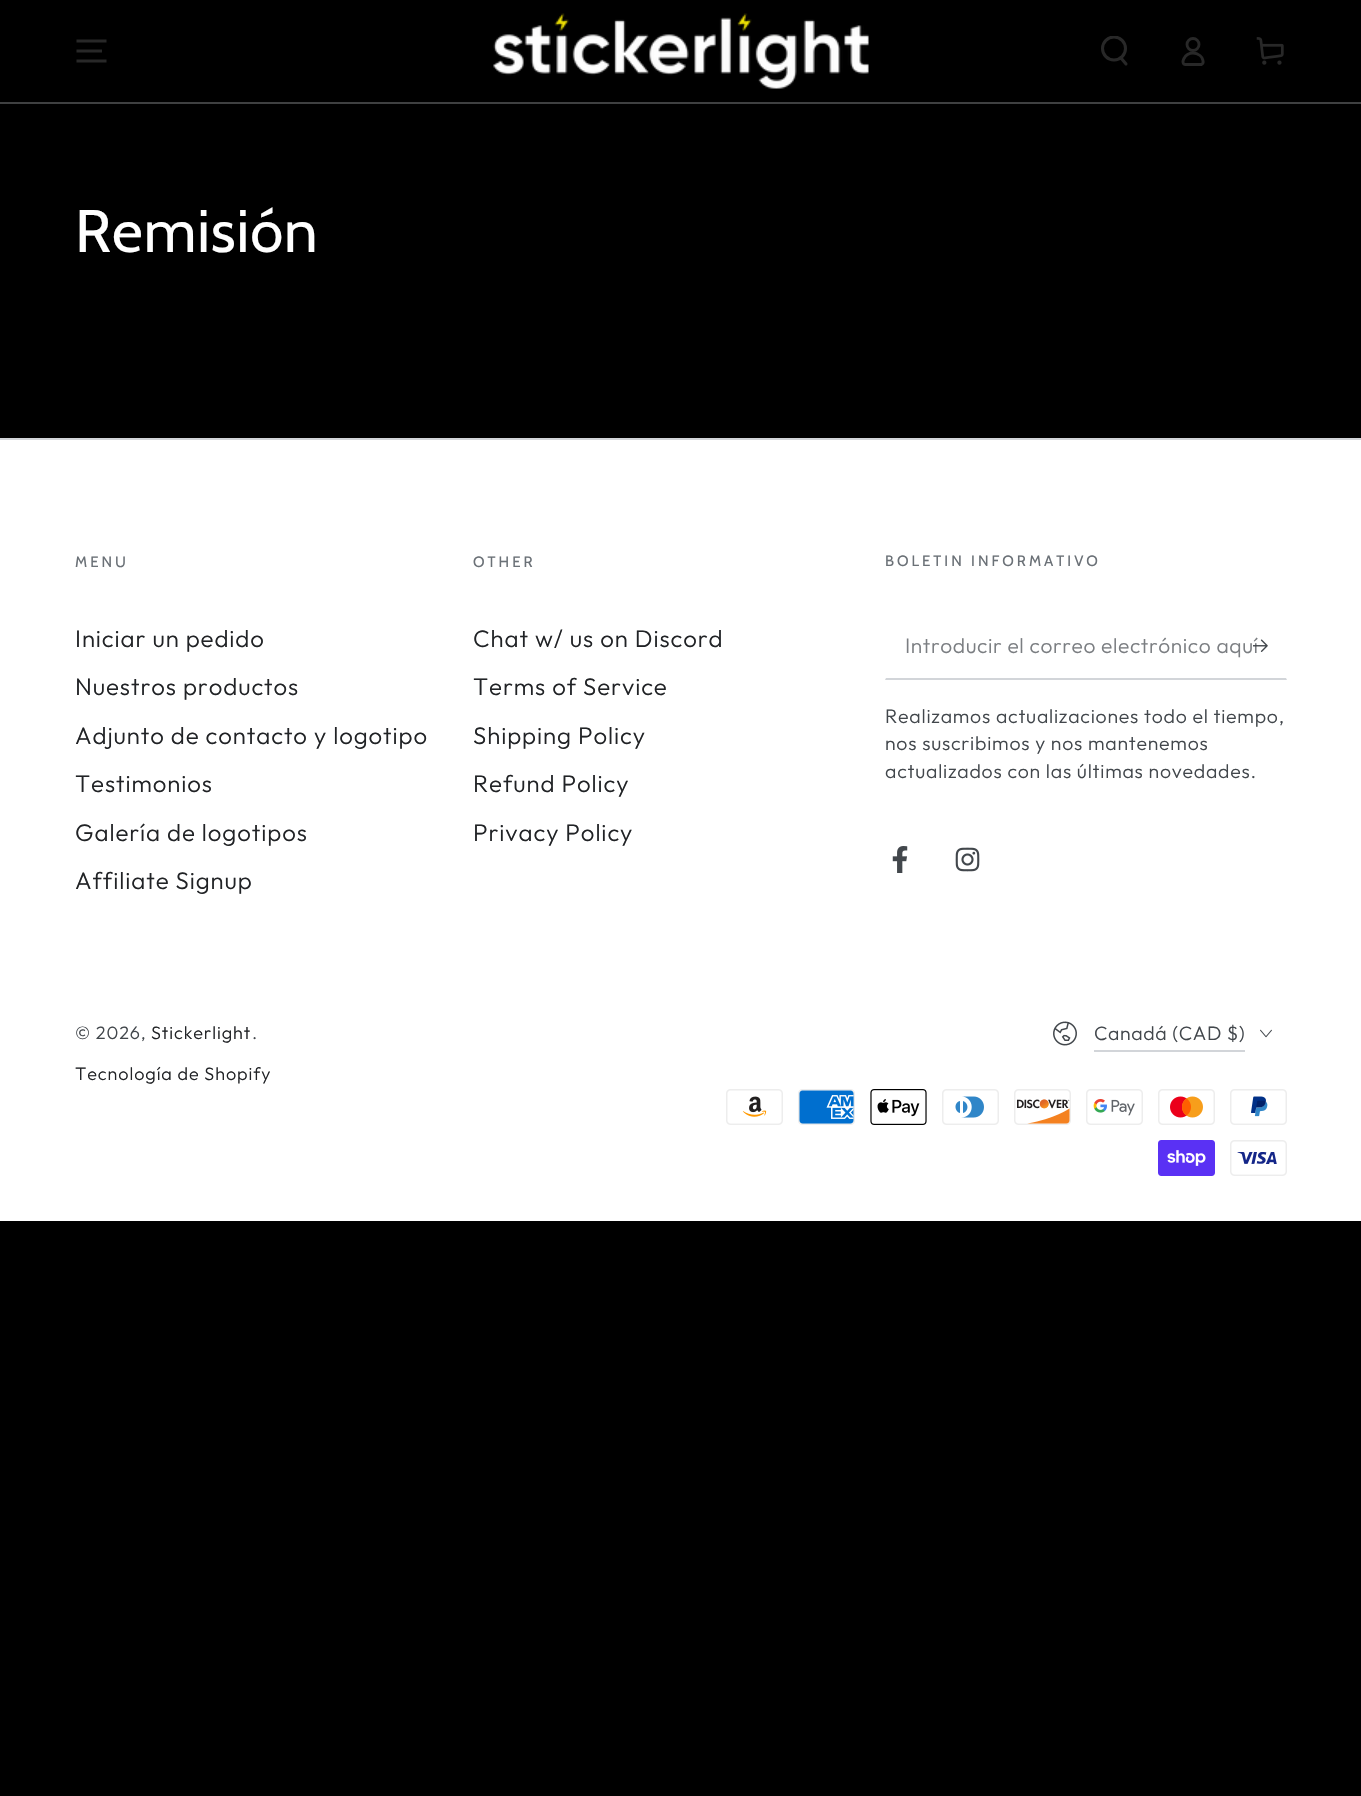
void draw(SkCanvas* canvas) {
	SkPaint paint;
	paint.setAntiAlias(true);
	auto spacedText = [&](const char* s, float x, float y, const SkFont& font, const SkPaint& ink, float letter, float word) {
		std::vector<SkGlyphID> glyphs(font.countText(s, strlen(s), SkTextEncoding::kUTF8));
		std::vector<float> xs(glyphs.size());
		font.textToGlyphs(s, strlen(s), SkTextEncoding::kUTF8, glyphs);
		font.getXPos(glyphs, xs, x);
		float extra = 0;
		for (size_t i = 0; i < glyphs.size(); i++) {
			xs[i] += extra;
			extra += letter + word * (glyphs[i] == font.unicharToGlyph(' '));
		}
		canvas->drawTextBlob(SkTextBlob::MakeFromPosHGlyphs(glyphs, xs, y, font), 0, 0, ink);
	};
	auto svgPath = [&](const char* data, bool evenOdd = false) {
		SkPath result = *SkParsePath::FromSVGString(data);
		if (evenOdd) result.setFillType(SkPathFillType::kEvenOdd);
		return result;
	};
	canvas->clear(0xff000000);
	paint.setColor(0xff3f4041);
	canvas->drawRect(SkRect::MakeXYWH(0, 102, 1361, 2), paint);
	paint.setStroke(true);
	paint.setStrokeWidth(2.8);
	paint.setColor(0xff282828);
	canvas->drawPath(svgPath("M76.5 61H106.5M76.5 51H102M76.5 41H106.5"), paint);
	canvas->drawImageRect(SkImages::DeferredFromEncodedData(SkData::MakeFromFileName("img1.png")), SkRect::MakeXYWH(493, 13, 376, 76), SkSamplingOptions());
	canvas->save();
	canvas->clipRect(SkRect::MakeXYWH(1100, 36, 30, 30));
	paint.setStrokeWidth(3);
	canvas->drawCircle(1114, 48.5, 11.5, paint);
	canvas->restore();
	paint.setStrokeCap(SkPaint::kRound_Cap);
	canvas->drawPath(svgPath("M1121 58L1126 64"), paint);
	paint.setStrokeWidth(2.8);
	paint.setStrokeCap(SkPaint::kButt_Cap);
	canvas->drawPath(svgPath("M1193 53C1184 53 1180 64.5 1185.5 64.5H1201.5C1205 63 1202 57 1200 55.5C1198 54 1195.5 53 1193 53Z"), paint);
	canvas->drawCircle(1193, 44.5, 6, paint);
	canvas->drawImageRect(SkImages::DeferredFromEncodedData(SkData::MakeFromFileName("img2.png")), SkRect::MakeXYWH(1256, 37, 28, 28), SkSamplingOptions());
	SkFont f1(fontMgr->matchFamilyStyle("Cabin", SkFontStyle::Normal()), 60);
	f1.setSubpixel(true);
	paint.setStroke(false);
	paint.setColor(0xffffffff);
	spacedText("Remisión", 75, 252, f1, paint, 0.9, 0);
	canvas->drawRect(SkRect::MakeXYWH(0, 440, 1361, 781), paint);
	paint.setColor(0xffd2d5d9);
	canvas->drawRect(SkRect::MakeXYWH(0, 438, 1361, 2), paint);
	SkFont f2(fontMgr->matchFamilyStyle("Cabin", SkFontStyle::Normal()), 15);
	f2.setSubpixel(true);
	paint.setColor(0xff6b7177);
	spacedText("MENU", 75, 567, f2, paint, 3, 0);
	SkFont f3(fontMgr->matchFamilyStyle("Outfit", SkFontStyle(300, SkFontStyle::kNormal_Width, SkFontStyle::kUpright_Slant)), 24);
	f3.setSubpixel(true);
	paint.setColor(0xff212326);
	spacedText("Iniciar un pedido", 75, 647, f3, paint, 0.9, 0);
	spacedText("Nuestros productos", 75, 695, f3, paint, 0.9, 0);
	spacedText("Adjunto de contacto y logotipo", 75, 744, f3, paint, 0.9, 0);
	spacedText("Testimonios", 75, 792, f3, paint, 0.9, 0);
	spacedText("Galería de logotipos", 75, 841, f3, paint, 0.9, 0);
	spacedText("Affiliate Signup", 75, 889, f3, paint, 0.9, 0);
	paint.setColor(0xff6b7177);
	spacedText("OTHER", 473, 567, f2, paint, 3, 0);
	paint.setColor(0xff212326);
	spacedText("Chat w/ us on Discord", 473, 647, f3, paint, 0.9, 0);
	spacedText("Terms of Service", 473, 695, f3, paint, 0.9, 0);
	spacedText("Shipping Policy", 473, 744, f3, paint, 0.9, 0);
	spacedText("Refund Policy", 473, 792, f3, paint, 0.9, 0);
	spacedText("Privacy Policy", 473, 841, f3, paint, 0.9, 0);
	paint.setColor(0xff6b7177);
	spacedText("BOLETIN INFORMATIVO", 885, 566, f2, paint, 3, 0);
	paint.setColor(0xffd2d5d9);
	canvas->drawPath(svgPath("M1287 680H885L886 678H1286Z"), paint);
	SkFont f4(fontMgr->matchFamilyStyle("Outfit", SkFontStyle(300, SkFontStyle::kNormal_Width, SkFontStyle::kUpright_Slant)), 21);
	f4.setSubpixel(true);
	paint.setColor(0xff7b7e82);
	spacedText("Introducir el correo electrónico aquí", 905, 653, f4, paint, 0.6, 0);
	canvas->drawImageRect(SkImages::DeferredFromEncodedData(SkData::MakeFromFileName("img3.png")), SkRect::MakeXYWH(1253, 639, 15, 13), SkSamplingOptions());
	SkFont f5(fontMgr->matchFamilyStyle("Outfit", SkFontStyle(300, SkFontStyle::kNormal_Width, SkFontStyle::kUpright_Slant)), 19.5);
	f5.setSubpixel(true);
	paint.setColor(0xff42474c);
	spacedText("Realizamos actualizaciones todo el tiempo,", 885, 723, f5, paint, 0.75, 0);
	spacedText("nos suscribimos y nos mantenemos", 885, 750, f5, paint, 0.75, 0);
	spacedText("actualizados con las últimas novedades.", 885, 778, f5, paint, 0.75, 0);
	canvas->drawImageRect(SkImages::DeferredFromEncodedData(SkData::MakeFromFileName("img4.png")), SkRect::MakeXYWH(892, 846, 16, 27), SkSamplingOptions());
	canvas->drawImageRect(SkImages::DeferredFromEncodedData(SkData::MakeFromFileName("img5.png")), SkRect::MakeXYWH(955, 847, 25, 25), SkSamplingOptions());
	SkFont f6(fontMgr->matchFamilyStyle("Outfit", SkFontStyle(300, SkFontStyle::kNormal_Width, SkFontStyle::kUpright_Slant)), 18);
	f6.setSubpixel(true);
	spacedText("© 2026,", 75, 1039, f6, paint, 0.9, 0);
	paint.setColor(0xff212326);
	spacedText("Stickerlight", 151, 1039, f6, paint, 0.9, 0);
	paint.setColor(0xff42474c);
	spacedText(".", 252, 1039, f6, paint, 0.9, 0);
	paint.setColor(0xff212326);
	spacedText("Tecnología de Shopify", 75, 1080, f6, paint, 0.9, 0);
	canvas->drawImageRect(SkImages::DeferredFromEncodedData(SkData::MakeFromFileName("img6.png")), SkRect::MakeXYWH(1053, 1021, 24, 25), SkSamplingOptions());
	paint.setColor(0xffd2d5d9);
	canvas->drawRect(SkRect::MakeXYWH(1094, 1050, 151, 2), paint);
	paint.setColor(0xff42474c);
	spacedText("Canadá (CAD $)", 1094, 1040, f5, paint, 0.6, 0);
	canvas->drawImageRect(SkImages::DeferredFromEncodedData(SkData::MakeFromFileName("img7.png")), SkRect::MakeXYWH(1260, 1029, 12, 9), SkSamplingOptions());
	canvas->drawImageRect(SkImages::DeferredFromEncodedData(SkData::MakeFromFileName("img8.png")), SkRect::MakeXYWH(726, 1089, 57, 36), SkSamplingOptions());
	canvas->drawImageRect(SkImages::DeferredFromEncodedData(SkData::MakeFromFileName("img9.png")), SkRect::MakeXYWH(798, 1089, 57, 36), SkSamplingOptions());
	canvas->drawImageRect(SkImages::DeferredFromEncodedData(SkData::MakeFromFileName("img10.png")), SkRect::MakeXYWH(870, 1089, 57, 36), SkSamplingOptions());
	canvas->drawImageRect(SkImages::DeferredFromEncodedData(SkData::MakeFromFileName("img11.png")), SkRect::MakeXYWH(942, 1089, 57, 36), SkSamplingOptions());
	canvas->drawImageRect(SkImages::DeferredFromEncodedData(SkData::MakeFromFileName("img12.png")), SkRect::MakeXYWH(1014, 1089, 57, 36), SkSamplingOptions());
	canvas->drawImageRect(SkImages::DeferredFromEncodedData(SkData::MakeFromFileName("img13.png")), SkRect::MakeXYWH(1086, 1089, 57, 36), SkSamplingOptions());
	canvas->drawImageRect(SkImages::DeferredFromEncodedData(SkData::MakeFromFileName("img14.png")), SkRect::MakeXYWH(1158, 1089, 57, 36), SkSamplingOptions());
	canvas->drawImageRect(SkImages::DeferredFromEncodedData(SkData::MakeFromFileName("img15.png")), SkRect::MakeXYWH(1230, 1089, 57, 36), SkSamplingOptions());
	canvas->drawImageRect(SkImages::DeferredFromEncodedData(SkData::MakeFromFileName("img16.png")), SkRect::MakeXYWH(1158, 1140, 57, 36), SkSamplingOptions());
	canvas->drawImageRect(SkImages::DeferredFromEncodedData(SkData::MakeFromFileName("img17.png")), SkRect::MakeXYWH(1230, 1140, 57, 36), SkSamplingOptions());
}
